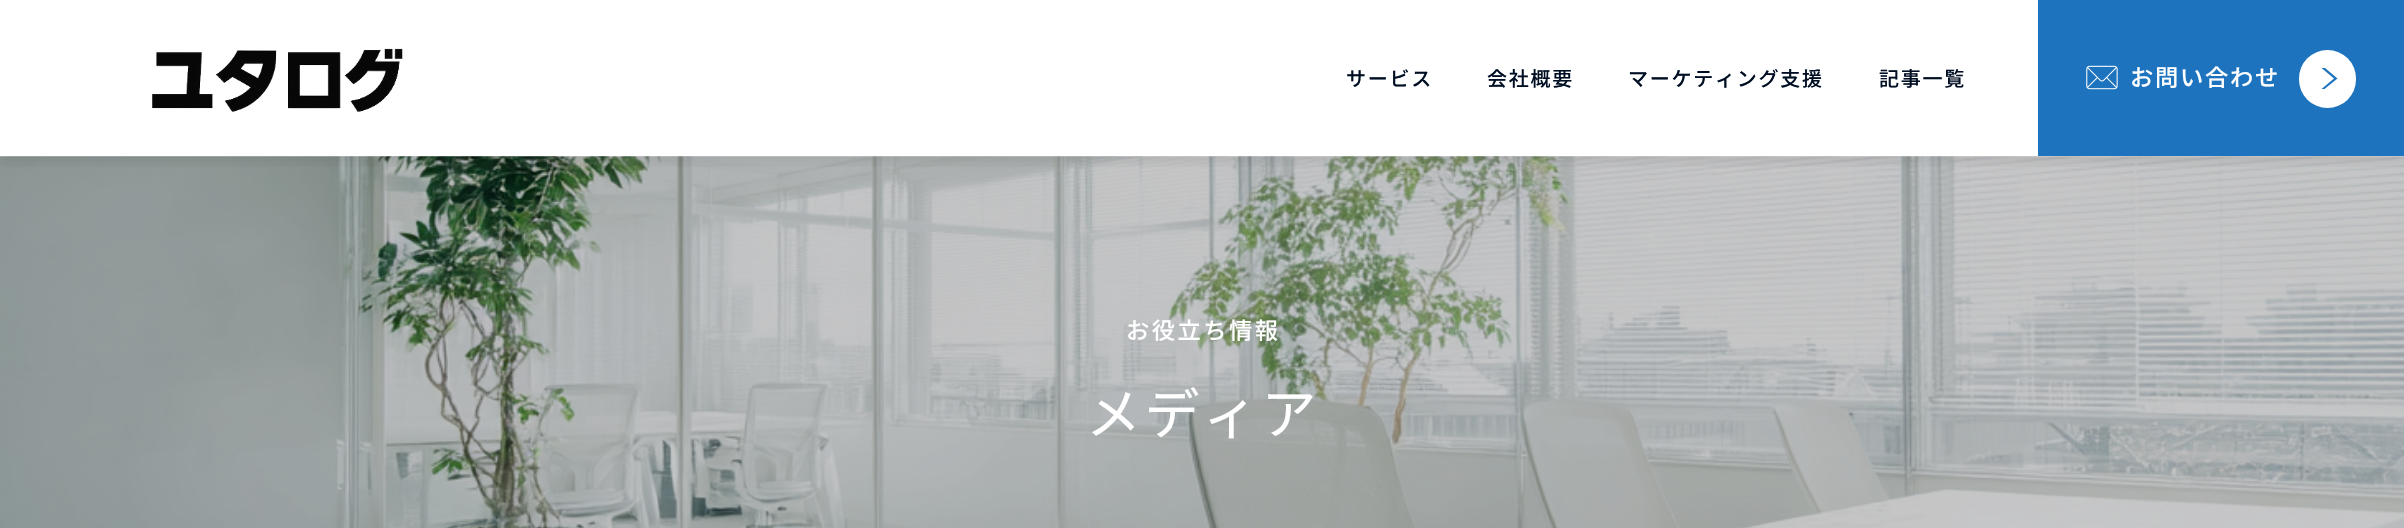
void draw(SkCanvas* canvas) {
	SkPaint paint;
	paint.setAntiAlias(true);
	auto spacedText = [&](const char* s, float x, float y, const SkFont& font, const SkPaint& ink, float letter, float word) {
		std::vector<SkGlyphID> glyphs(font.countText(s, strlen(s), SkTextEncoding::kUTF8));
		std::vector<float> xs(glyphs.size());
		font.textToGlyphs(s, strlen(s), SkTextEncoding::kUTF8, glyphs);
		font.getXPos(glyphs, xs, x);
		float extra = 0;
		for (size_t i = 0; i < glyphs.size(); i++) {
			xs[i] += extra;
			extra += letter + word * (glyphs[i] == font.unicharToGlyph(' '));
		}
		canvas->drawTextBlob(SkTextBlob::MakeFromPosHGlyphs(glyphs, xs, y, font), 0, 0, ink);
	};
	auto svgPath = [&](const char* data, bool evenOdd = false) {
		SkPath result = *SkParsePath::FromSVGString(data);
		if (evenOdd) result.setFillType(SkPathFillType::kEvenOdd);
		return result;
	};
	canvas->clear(0xffffffff);
	canvas->drawImageRect(SkImages::DeferredFromEncodedData(SkData::MakeFromFileName("img3.png")), SkRect::MakeXYWH(0, 156, 2404, 372), SkSamplingOptions());
	canvas->save();
	canvas->clipRect(SkRect::MakeXYWH(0, 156, 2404, 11));
	paint.setColor(0x17000000);
	paint.setMaskFilter(SkMaskFilter::MakeBlur(kNormal_SkBlurStyle, 7.5));
	canvas->drawRect(SkRect::MakeXYWH(0, 5, 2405, 156), paint);
	paint.setMaskFilter(nullptr);
	canvas->restore();
	canvas->drawImageRect(SkImages::DeferredFromEncodedData(SkData::MakeFromFileName("img1.png")), SkRect::MakeXYWH(152, 48, 251, 64), SkSamplingOptions());
	SkFont f1(fontMgr->matchFamilyStyle("Noto Sans JP", SkFontStyle(500, SkFontStyle::kNormal_Width, SkFontStyle::kUpright_Slant)), 20);
	f1.setSubpixel(true);
	paint.setColor(0xff000e23);
	spacedText("サービス", 1346, 86, f1, paint, 1.75, 0);
	spacedText("会社概要", 1487, 86, f1, paint, 1.75, 0);
	spacedText("マーケティング支援", 1628, 86, f1, paint, 1.75, 0);
	spacedText("記事一覧", 1879, 86, f1, paint, 1.75, 0);
	paint.setColor(0xff1e73be);
	canvas->drawRect(SkRect::MakeXYWH(2038, 0, 366, 156), paint);
	canvas->drawImageRect(SkImages::DeferredFromEncodedData(SkData::MakeFromFileName("img2.png")), SkRect::MakeXYWH(2086, 65, 32, 25), SkSamplingOptions());
	SkFont f2(fontMgr->matchFamilyStyle("Noto Sans JP", SkFontStyle(500, SkFontStyle::kNormal_Width, SkFontStyle::kUpright_Slant)), 23.25);
	f2.setSubpixel(true);
	paint.setColor(0xffffffff);
	spacedText("お問い合わせ", 2130, 86, f2, paint, 1.75, 0);
	canvas->drawRoundRect(SkRect::MakeXYWH(2299, 50, 57, 58), 28.5, 28.5, paint);
	paint.setColor(0xff1e73be);
	canvas->drawPath(svgPath("M2325 68H2321.5L2334 78.5L2321.5 89H2324.5L2337.5 78.5Z"), paint);
	paint.setColor(0xffffffff);
	spacedText("お役立ち情報", 1126, 339, f2, paint, 2.5, 0);
	SkFont f3(fontMgr->matchFamilyStyle("Noto Sans JP", SkFontStyle::Normal()), 55);
	f3.setSubpixel(true);
	spacedText("メディア", 1086, 434, f3, paint, 3.5, 0);
}
